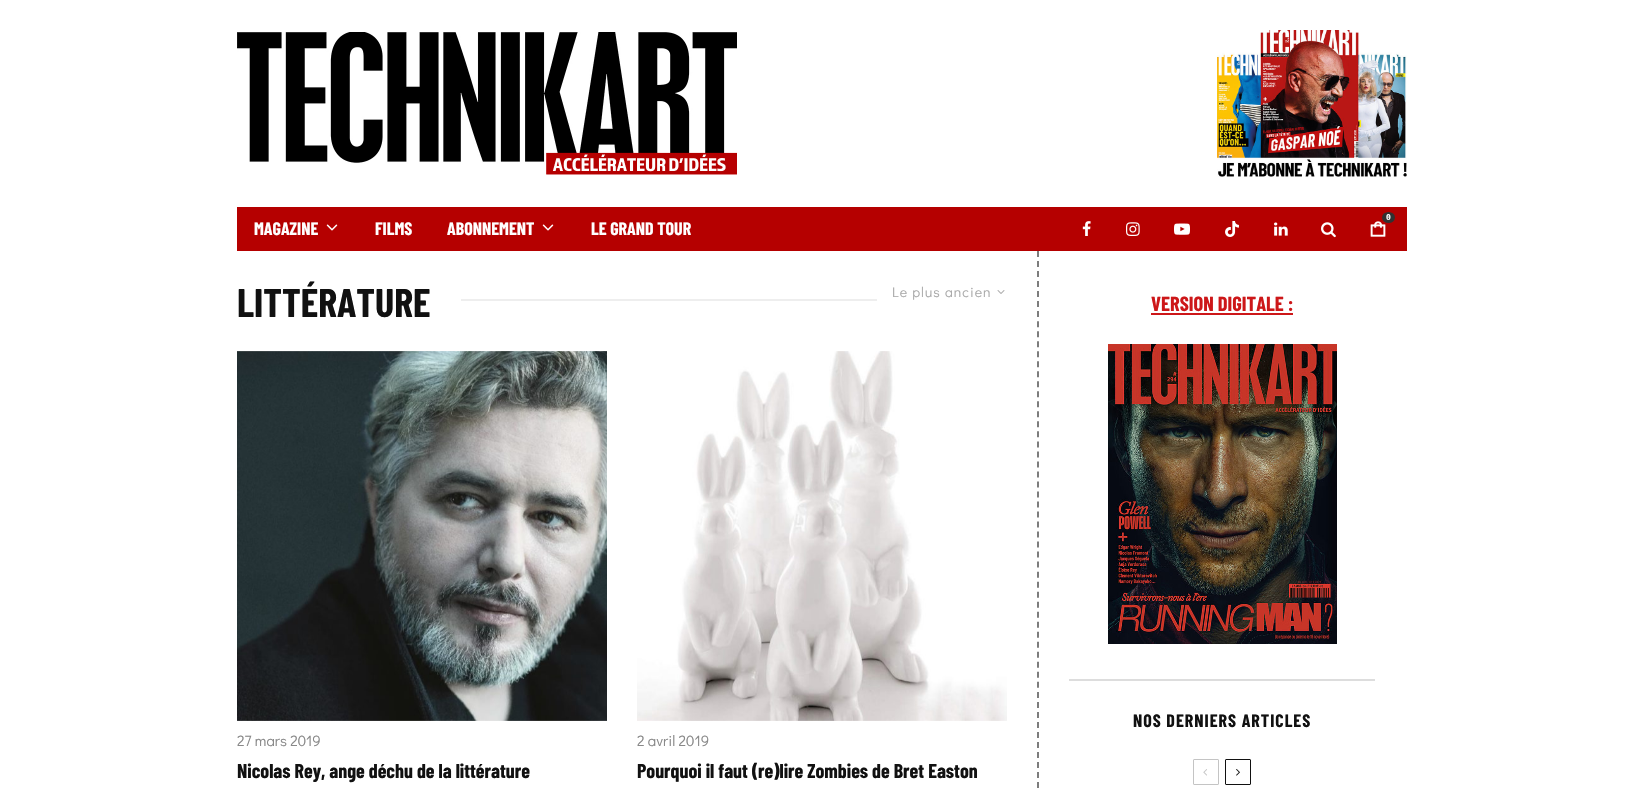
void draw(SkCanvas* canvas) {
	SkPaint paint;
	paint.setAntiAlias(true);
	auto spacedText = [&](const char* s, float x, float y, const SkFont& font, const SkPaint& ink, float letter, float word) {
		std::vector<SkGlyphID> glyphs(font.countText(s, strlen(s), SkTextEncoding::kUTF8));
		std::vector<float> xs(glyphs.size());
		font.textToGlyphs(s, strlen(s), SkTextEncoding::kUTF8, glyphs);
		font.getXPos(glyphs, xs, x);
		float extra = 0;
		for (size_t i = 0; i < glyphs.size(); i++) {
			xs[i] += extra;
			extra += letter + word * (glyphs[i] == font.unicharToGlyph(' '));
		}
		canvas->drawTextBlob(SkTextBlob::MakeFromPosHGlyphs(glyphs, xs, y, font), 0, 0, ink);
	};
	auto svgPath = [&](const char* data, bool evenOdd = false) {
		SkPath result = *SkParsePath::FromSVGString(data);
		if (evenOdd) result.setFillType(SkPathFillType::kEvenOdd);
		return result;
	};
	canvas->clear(0xffffffff);
	canvas->drawImageRect(SkImages::DeferredFromEncodedData(SkData::MakeFromFileName("img1.png")), SkRect::MakeXYWH(237, 32, 500, 143), SkSamplingOptions());
	canvas->drawImageRect(SkImages::DeferredFromEncodedData(SkData::MakeFromFileName("img2.png")), SkRect::MakeXYWH(1217, 30, 190, 147), SkSamplingOptions());
	paint.setColor(0xffb50000);
	canvas->drawRect(SkRect::MakeXYWH(237, 207, 1170, 44), paint);
	canvas->drawImageRect(SkImages::DeferredFromEncodedData(SkData::MakeFromFileName("img3.png")), SkRect::MakeXYWH(1370, 221, 16, 16), SkSamplingOptions());
	paint.setColor(0xff313131);
	canvas->drawOval(SkRect::MakeXYWH(1382, 212, 13, 11), paint);
	SkFont f1(fontMgr->matchFamilyStyle("DejaVu Sans Mono", SkFontStyle::Bold()), 8);
	f1.setSubpixel(true);
	paint.setColor(0xffffffff);
	canvas->drawString("0", 1386, 220, f1, paint);
	canvas->drawImageRect(SkImages::DeferredFromEncodedData(SkData::MakeFromFileName("img4.png")), SkRect::MakeXYWH(1082, 221, 9, 15), SkSamplingOptions());
	canvas->drawImageRect(SkImages::DeferredFromEncodedData(SkData::MakeFromFileName("img5.png")), SkRect::MakeXYWH(1126, 222, 14, 14), SkSamplingOptions());
	canvas->drawImageRect(SkImages::DeferredFromEncodedData(SkData::MakeFromFileName("img6.png")), SkRect::MakeXYWH(1174, 223, 16, 12), SkSamplingOptions());
	canvas->drawImageRect(SkImages::DeferredFromEncodedData(SkData::MakeFromFileName("img7.png")), SkRect::MakeXYWH(1225, 221, 14, 16), SkSamplingOptions());
	canvas->drawImageRect(SkImages::DeferredFromEncodedData(SkData::MakeFromFileName("img8.png")), SkRect::MakeXYWH(1274, 222, 14, 14), SkSamplingOptions());
	canvas->drawImageRect(SkImages::DeferredFromEncodedData(SkData::MakeFromFileName("img9.png")), SkRect::MakeXYWH(1321, 222, 15, 16), SkSamplingOptions());
	SkFont f2(fontMgr->matchFamilyStyle("Barlow Condensed", SkFontStyle::Bold()), 18);
	f2.setSubpixel(true);
	canvas->drawString("MAGAZINE", 254, 235, f2, paint);
	canvas->drawImageRect(SkImages::DeferredFromEncodedData(SkData::MakeFromFileName("img10.png")), SkRect::MakeXYWH(326, 224, 12, 7), SkSamplingOptions());
	canvas->drawString("FILMS", 375, 235, f2, paint);
	canvas->drawString("ABONNEMENT", 447, 235, f2, paint);
	canvas->drawImageRect(SkImages::DeferredFromEncodedData(SkData::MakeFromFileName("img10.png")), SkRect::MakeXYWH(542, 224, 12, 7), SkSamplingOptions());
	canvas->drawString("LE GRAND TOUR", 591, 235, f2, paint);
	SkFont f3(fontMgr->matchFamilyStyle("Barlow Condensed", SkFontStyle::Bold()), 40);
	f3.setSubpixel(true);
	paint.setColor(0xff111111);
	canvas->drawString("LITTÉRATURE", 237, 317, f3, paint);
	paint.setColor(0xffeeeeee);
	canvas->drawRect(SkRect::MakeXYWH(461, 299, 416, 2), paint);
	SkFont f4(fontMgr->matchFamilyStyle("Didact Gothic", SkFontStyle::Normal()), 14);
	f4.setSubpixel(true);
	paint.setColor(0xffaaaaaa);
	spacedText("Le plus ancien", 892, 297, f4, paint, 1, 0);
	canvas->drawImageRect(SkImages::DeferredFromEncodedData(SkData::MakeFromFileName("img11.png")), SkRect::MakeXYWH(997, 290, 8, 4), SkSamplingOptions());
	canvas->drawImageRect(SkImages::DeferredFromEncodedData(SkData::MakeFromFileName("img12.png")), SkRect::MakeXYWH(237, 351, 370, 370), SkSamplingOptions());
	SkFont f5(fontMgr->matchFamilyStyle("Didact Gothic", SkFontStyle::Normal()), 15);
	f5.setSubpixel(true);
	paint.setColor(0xff888888);
	canvas->drawString("27 mars 2019", 237, 746, f5, paint);
	SkFont f6(fontMgr->matchFamilyStyle("Barlow Condensed", SkFontStyle::Bold()), 20);
	f6.setSubpixel(true);
	paint.setColor(0xff111111);
	canvas->drawString("Nicolas Rey, ange déchu de la littérature", 237, 778, f6, paint);
	canvas->drawImageRect(SkImages::DeferredFromEncodedData(SkData::MakeFromFileName("img13.png")), SkRect::MakeXYWH(637, 351, 370, 370), SkSamplingOptions());
	paint.setColor(0xff888888);
	canvas->drawString("2 avril 2019", 637, 746, f5, paint);
	paint.setColor(0xff111111);
	canvas->drawString("Pourquoi il faut (re)lire Zombies de Bret Easton", 637, 778, f6, paint);
	paint.setStroke(true);
	paint.setStrokeWidth(2);
	paint.setColor(0xff7d7d7d);
	paint.setPathEffect(SkDashPathEffect::Make({{6, 4.02f}}, 0));
	canvas->drawPath(svgPath("M1038 251V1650"), paint);
	paint.setPathEffect(nullptr);
	paint.setStroke(false);
	paint.setColor(0xffdddddd);
	canvas->drawRect(SkRect::MakeXYWH(1069, 679, 306, 2), paint);
	SkFont f7(fontMgr->matchFamilyStyle("Barlow Condensed", SkFontStyle::Bold()), 20.5);
	f7.setSubpixel(true);
	paint.setColor(0xffcd1719);
	canvas->drawString("VERSION DIGITALE :", 1151, 311, f7, paint);
	canvas->drawRect(SkRect::MakeXYWH(1151, 313, 142, 2), paint);
	canvas->drawImageRect(SkImages::DeferredFromEncodedData(SkData::MakeFromFileName("img14.png")), SkRect::MakeXYWH(1108, 344, 229, 300), SkSamplingOptions());
	paint.setColor(0xff111111);
	spacedText("NOS DERNIERS ARTICLES", 1133, 727, f2, paint, 1, 0);
	paint.setStroke(true);
	paint.setStrokeWidth(1);
	paint.setColor(0xffc4c4c4);
	canvas->drawRoundRect(SkRect::MakeXYWH(1193.5, 759.5, 25, 25), 0.5, 0.5, paint);
	canvas->drawImageRect(SkImages::DeferredFromEncodedData(SkData::MakeFromFileName("img15.png")), SkRect::MakeXYWH(1203, 769, 4, 7), SkSamplingOptions());
	paint.setColor(0xff111111);
	canvas->drawRoundRect(SkRect::MakeXYWH(1225.5, 759.5, 25, 25), 0.5, 0.5, paint);
	canvas->drawImageRect(SkImages::DeferredFromEncodedData(SkData::MakeFromFileName("img16.png")), SkRect::MakeXYWH(1236, 769, 4, 7), SkSamplingOptions());
}
